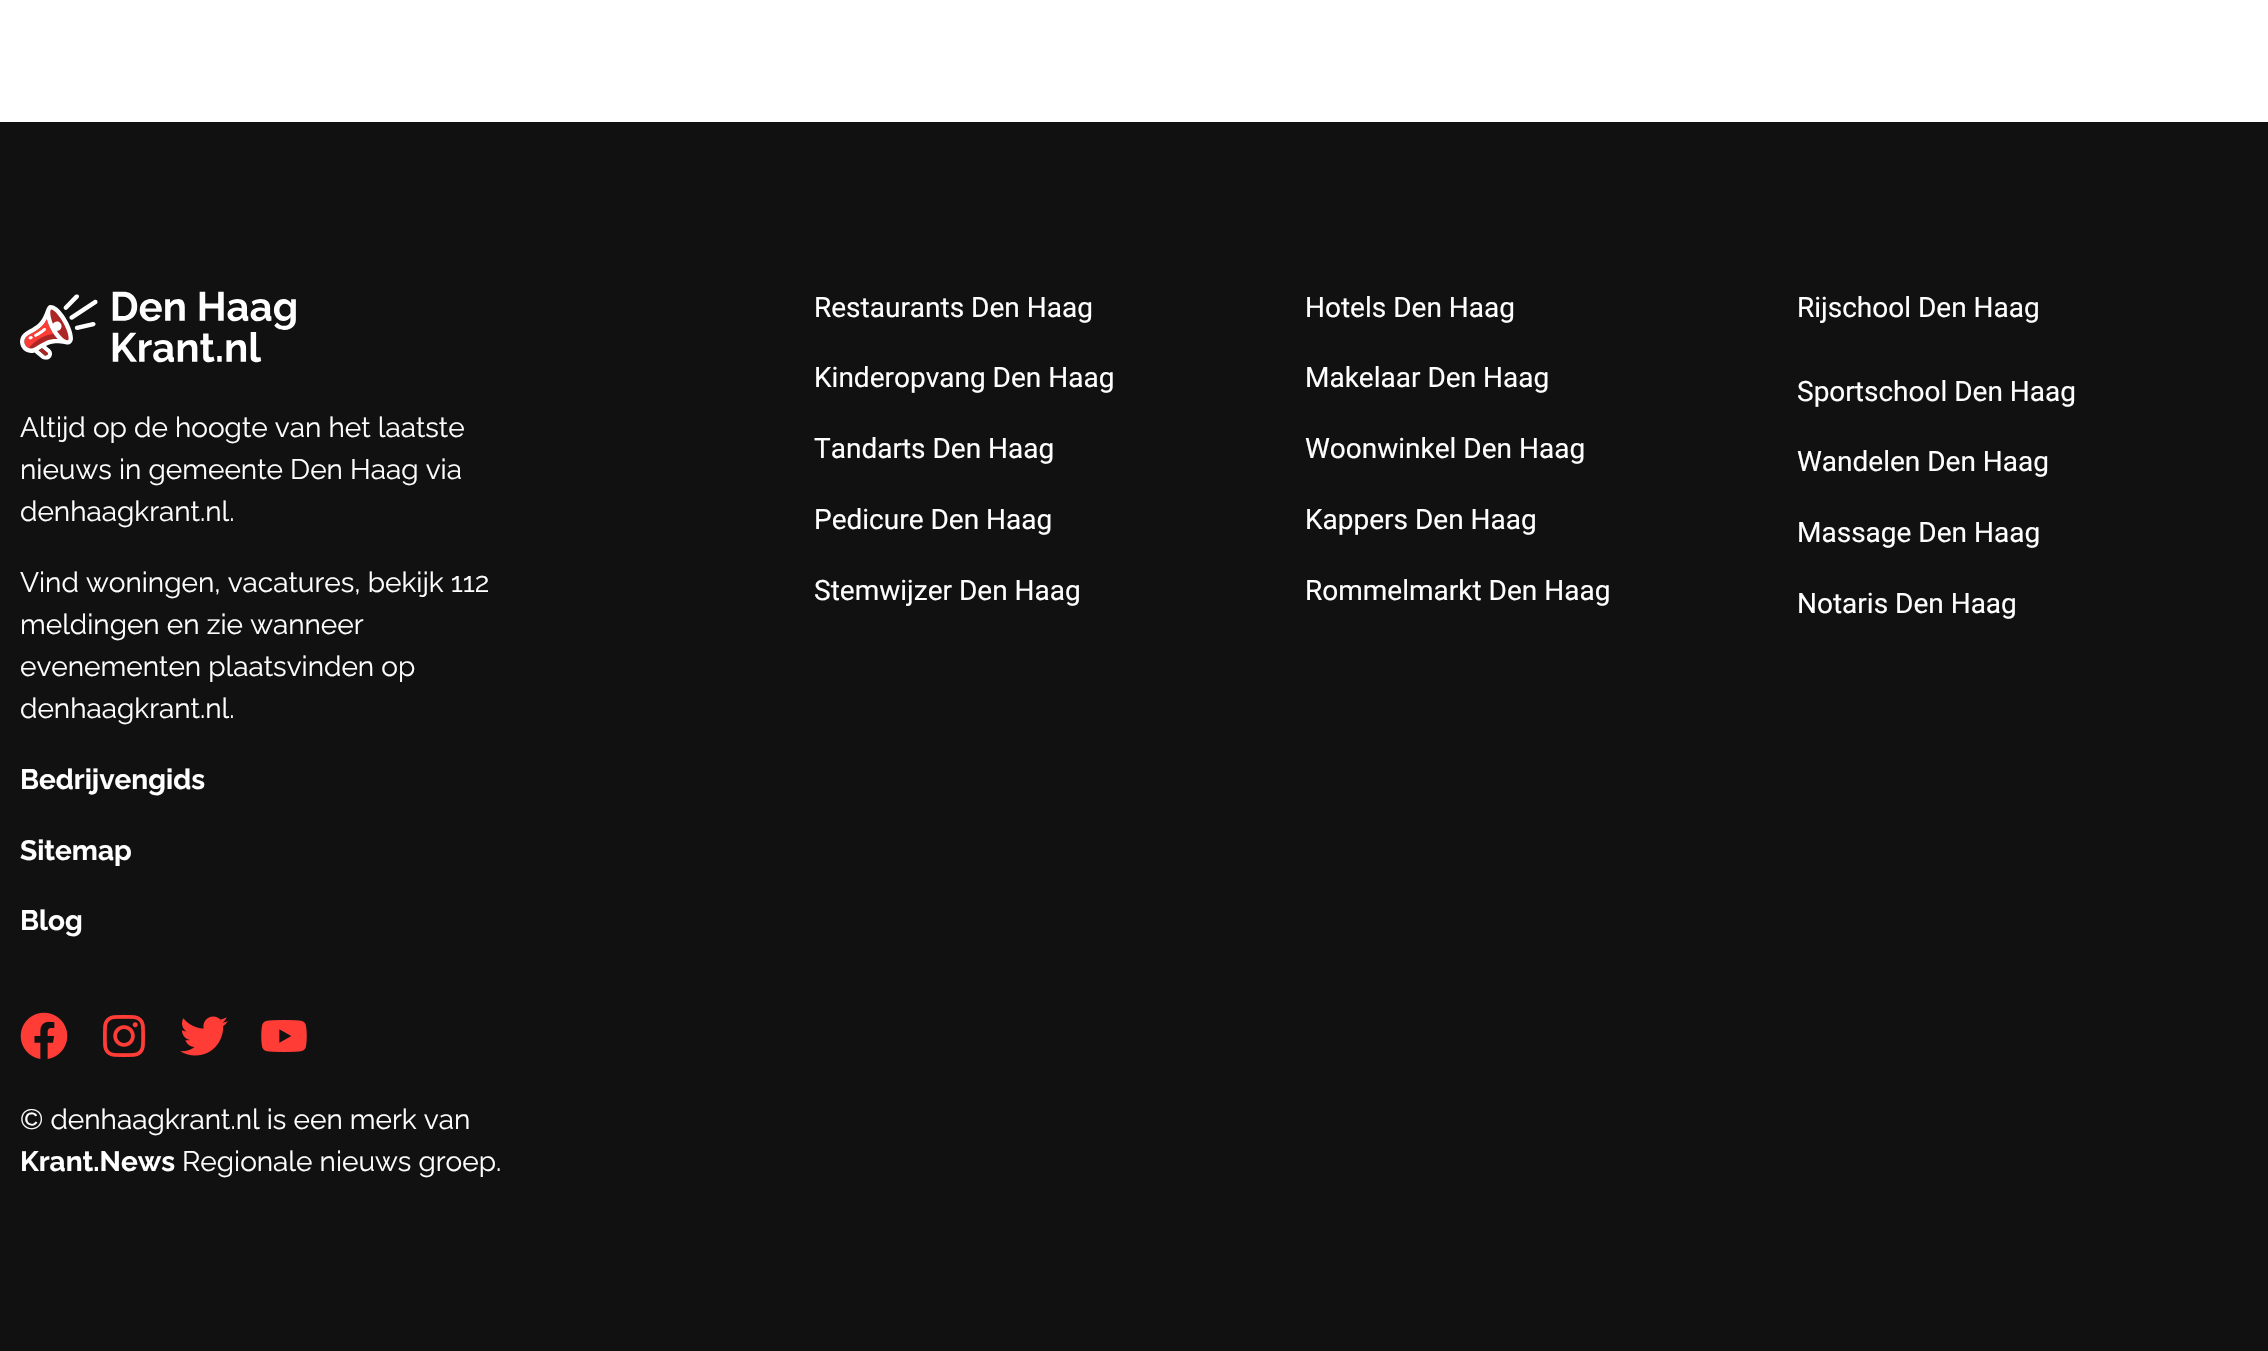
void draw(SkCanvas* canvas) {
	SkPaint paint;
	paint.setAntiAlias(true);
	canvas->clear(0xffffffff);
	paint.setColor(0xff111111);
	canvas->drawRect(SkRect::MakeXYWH(0, 122, 2268, 1229), paint);
	canvas->drawImageRect(SkImages::DeferredFromEncodedData(SkData::MakeFromFileName("img1.png")), SkRect::MakeXYWH(20, 291, 276, 72), SkSamplingOptions());
	SkFont f1(fontMgr->matchFamilyStyle("Raleway", SkFontStyle::Normal()), 28);
	f1.setSubpixel(true);
	paint.setColor(0xffffffff);
	canvas->drawString("Altijd op de hoogte van het laatste", 20, 437, f1, paint);
	canvas->drawString("nieuws in gemeente Den Haag via", 20, 479, f1, paint);
	canvas->drawString("denhaagkrant.nl.", 20, 521, f1, paint);
	canvas->drawString("Vind woningen, vacatures, bekijk 112", 20, 592, f1, paint);
	canvas->drawString("meldingen en zie wanneer", 20, 634, f1, paint);
	canvas->drawString("evenementen plaatsvinden op", 20, 676, f1, paint);
	canvas->drawString("denhaagkrant.nl.", 20, 718, f1, paint);
	SkFont f2(fontMgr->matchFamilyStyle("Raleway", SkFontStyle::Bold()), 28);
	f2.setSubpixel(true);
	canvas->drawString("Bedrijvengids", 20, 789, f2, paint);
	canvas->drawString("Sitemap", 20, 860, f2, paint);
	canvas->drawString("Blog", 20, 930, f2, paint);
	canvas->drawImageRect(SkImages::DeferredFromEncodedData(SkData::MakeFromFileName("img2.png")), SkRect::MakeXYWH(20, 1012, 48, 47), SkSamplingOptions());
	canvas->drawImageRect(SkImages::DeferredFromEncodedData(SkData::MakeFromFileName("img3.png")), SkRect::MakeXYWH(103, 1015, 42, 42), SkSamplingOptions());
	canvas->drawImageRect(SkImages::DeferredFromEncodedData(SkData::MakeFromFileName("img4.png")), SkRect::MakeXYWH(180, 1016, 48, 40), SkSamplingOptions());
	canvas->drawImageRect(SkImages::DeferredFromEncodedData(SkData::MakeFromFileName("img5.png")), SkRect::MakeXYWH(261, 1020, 46, 32), SkSamplingOptions());
	canvas->drawString("© denhaagkrant.nl is een merk van", 20, 1129, f1, paint);
	canvas->drawString("Krant.News", 20, 1171, f2, paint);
	canvas->drawString("Regionale nieuws groep.", 182, 1171, f1, paint);
	SkFont f3(fontMgr->matchFamilyStyle("Roboto", SkFontStyle::Normal()), 28);
	f3.setSubpixel(true);
	canvas->drawString("Restaurants Den Haag", 814, 317, f3, paint);
	canvas->drawString("Kinderopvang Den Haag", 814, 387, f3, paint);
	canvas->drawString("Tandarts Den Haag", 814, 458, f3, paint);
	canvas->drawString("Pedicure Den Haag", 814, 529, f3, paint);
	canvas->drawString("Stemwijzer Den Haag", 814, 600, f3, paint);
	canvas->drawString("Hotels Den Haag", 1305, 317, f3, paint);
	canvas->drawString("Makelaar Den Haag", 1305, 387, f3, paint);
	canvas->drawString("Woonwinkel Den Haag", 1305, 458, f3, paint);
	canvas->drawString("Kappers Den Haag", 1305, 529, f3, paint);
	canvas->drawString("Rommelmarkt Den Haag", 1305, 600, f3, paint);
	canvas->drawString("Rijschool Den Haag", 1797, 317, f3, paint);
	canvas->drawString("Sportschool Den Haag", 1797, 401, f3, paint);
	canvas->drawString("Wandelen Den Haag", 1797, 471, f3, paint);
	canvas->drawString("Massage Den Haag", 1797, 542, f3, paint);
	canvas->drawString("Notaris Den Haag", 1797, 613, f3, paint);
}
